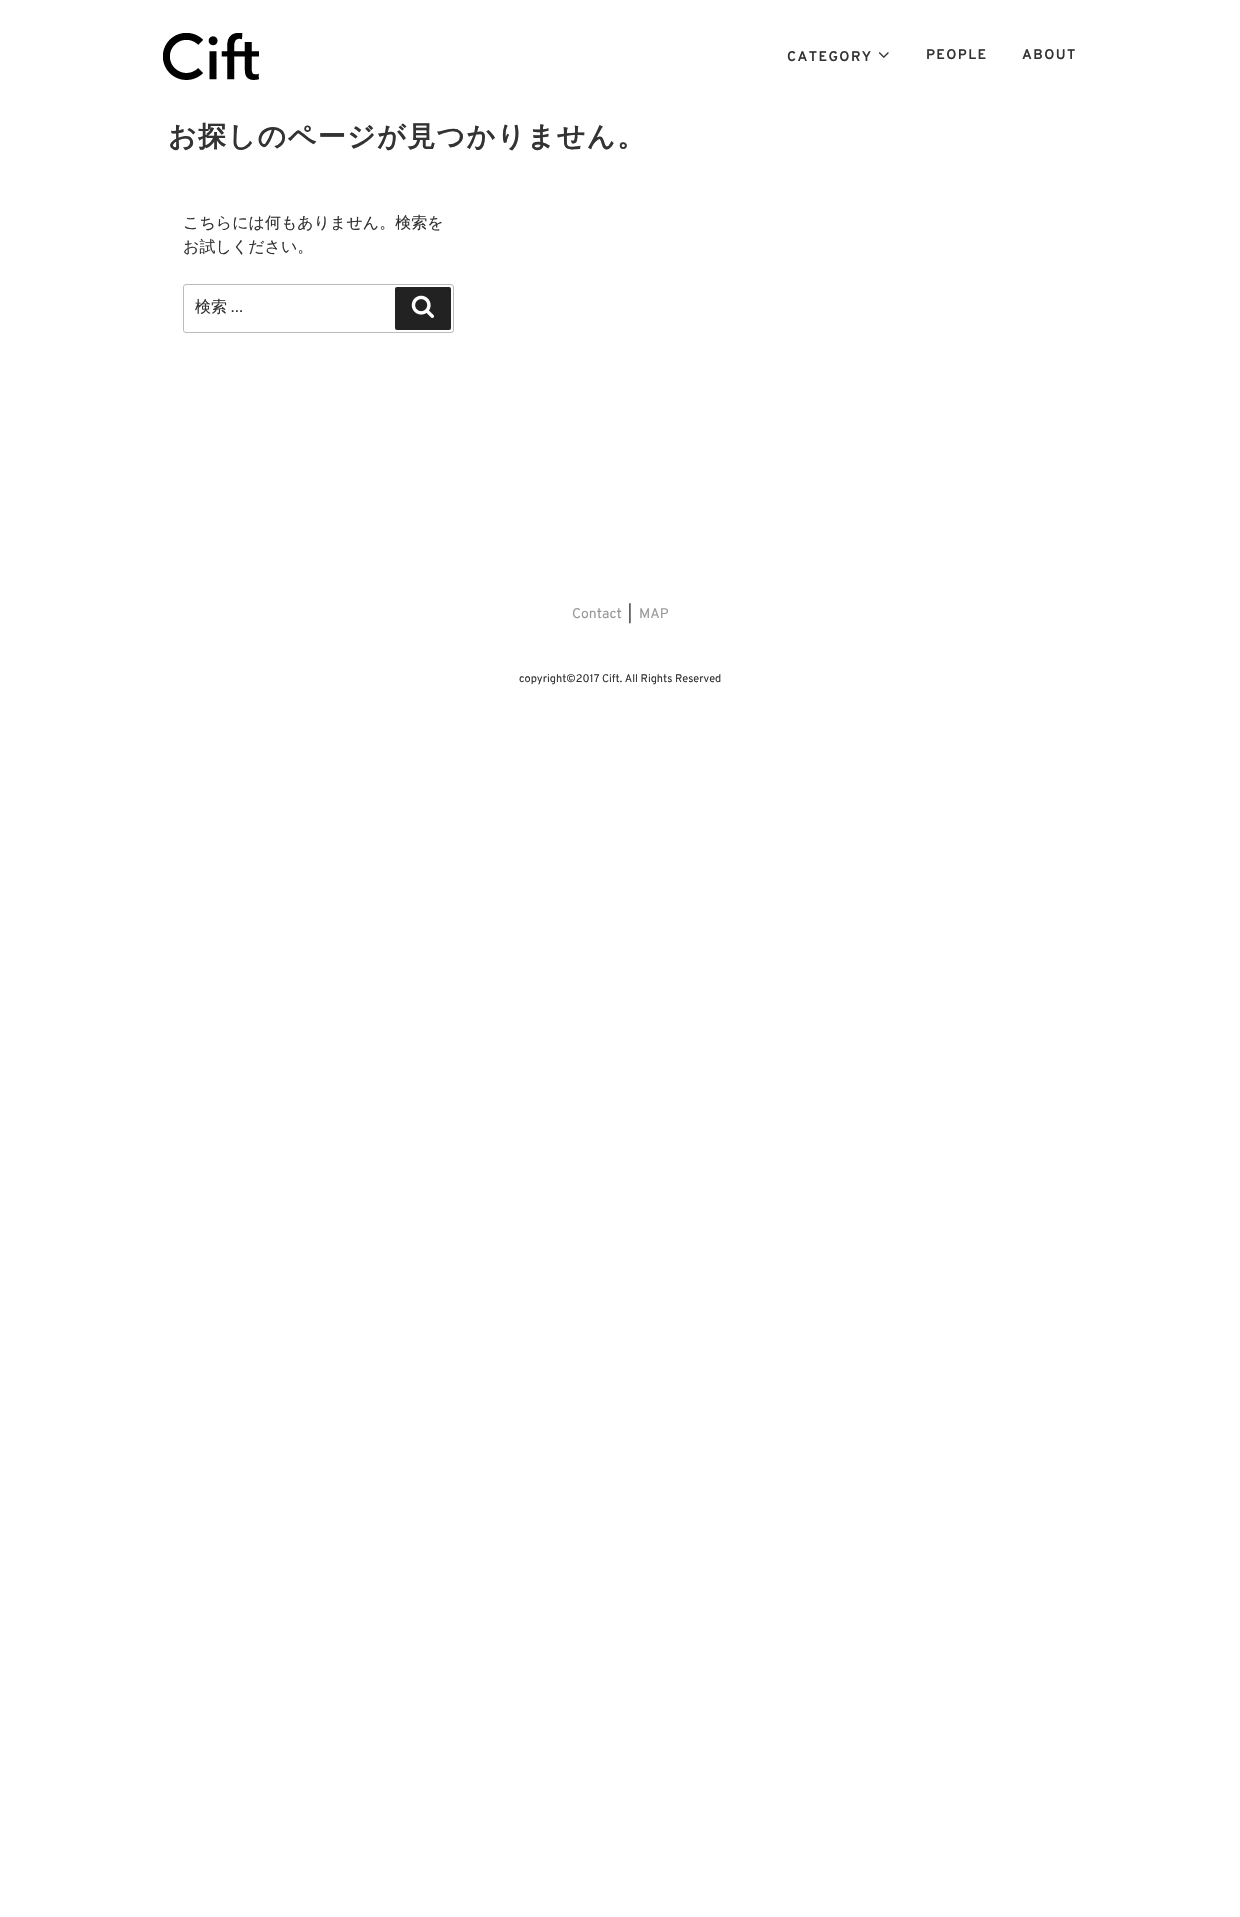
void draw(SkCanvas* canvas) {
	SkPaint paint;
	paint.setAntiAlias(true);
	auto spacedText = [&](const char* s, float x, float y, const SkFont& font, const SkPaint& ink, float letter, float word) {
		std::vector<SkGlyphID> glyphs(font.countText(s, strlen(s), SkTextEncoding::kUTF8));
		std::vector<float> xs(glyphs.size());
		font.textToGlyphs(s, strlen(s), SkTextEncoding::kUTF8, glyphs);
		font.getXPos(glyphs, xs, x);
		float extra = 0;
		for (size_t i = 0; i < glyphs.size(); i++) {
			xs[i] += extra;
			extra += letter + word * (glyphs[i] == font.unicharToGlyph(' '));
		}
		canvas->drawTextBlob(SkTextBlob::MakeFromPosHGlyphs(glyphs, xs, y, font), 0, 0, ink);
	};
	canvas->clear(0xffffffff);
	canvas->drawImageRect(SkImages::DeferredFromEncodedData(SkData::MakeFromFileName("img1.png")), SkRect::MakeXYWH(163, 33, 96, 47), SkSamplingOptions());
	SkFont f1(fontMgr->matchFamilyStyle("Overpass", SkFontStyle(600, SkFontStyle::kNormal_Width, SkFontStyle::kUpright_Slant)), 14);
	f1.setSubpixel(true);
	paint.setColor(0xff333333);
	spacedText("CATEGORY", 787, 61, f1, paint, 1.4, 0);
	canvas->drawImageRect(SkImages::DeferredFromEncodedData(SkData::MakeFromFileName("img2.png")), SkRect::MakeXYWH(878, 52, 11, 6), SkSamplingOptions());
	spacedText("PEOPLE", 926, 59, f1, paint, 1.4, 0);
	spacedText("ABOUT", 1022, 59, f1, paint, 1.4, 0);
	SkFont f2(fontMgr->matchFamilyStyle("WenQuanYi Zen Hei", SkFontStyle::Bold()), 28);
	f2.setSubpixel(true);
	spacedText("お探しのページが見つかりません。", 168, 146, f2, paint, 1.4, 0);
	SkFont f3(fontMgr->matchFamilyStyle("WenQuanYi Zen Hei", SkFontStyle(500, SkFontStyle::kNormal_Width, SkFontStyle::kUpright_Slant)), 16);
	f3.setSubpixel(true);
	canvas->drawString("こちらには何もありません。検索を", 183, 228, f3, paint);
	canvas->drawString("お試しください。", 183, 252, f3, paint);
	paint.setStroke(true);
	paint.setStrokeWidth(1);
	paint.setColor(0xffbbbbbb);
	canvas->drawRoundRect(SkRect::MakeXYWH(183.5, 284.5, 270, 48), 2.5, 2.5, paint);
	paint.setStroke(false);
	paint.setColor(0xff333333);
	canvas->drawString("検索", 195, 312, f3, paint);
	SkFont f4(fontMgr->matchFamilyStyle("Libre Franklin", SkFontStyle::Normal()), 16);
	f4.setSubpixel(true);
	canvas->drawString("…", 231, 312, f4, paint);
	paint.setColor(0xff222222);
	canvas->drawRoundRect(SkRect::MakeXYWH(395, 287, 56, 43), 2, 2, paint);
	canvas->drawImageRect(SkImages::DeferredFromEncodedData(SkData::MakeFromFileName("img3.png")), SkRect::MakeXYWH(411, 295, 23, 23), SkSamplingOptions());
	SkFont f5(fontMgr->matchFamilyStyle("Overpass", SkFontStyle::Normal()), 14);
	f5.setSubpixel(true);
	paint.setColor(0xff999999);
	canvas->drawString("Contact", 572, 618, f5, paint);
	paint.setColor(0xff333333);
	canvas->drawString("|", 628, 618, f5, paint);
	paint.setColor(0xff999999);
	canvas->drawString("MAP", 639, 618, f5, paint);
	SkFont f6(fontMgr->matchFamilyStyle("Overpass", SkFontStyle::Normal()), 11);
	f6.setSubpixel(true);
	paint.setColor(0xff333333);
	canvas->drawString("copyright©2017 Cift. All Rights Reserved", 519, 682, f6, paint);
}
